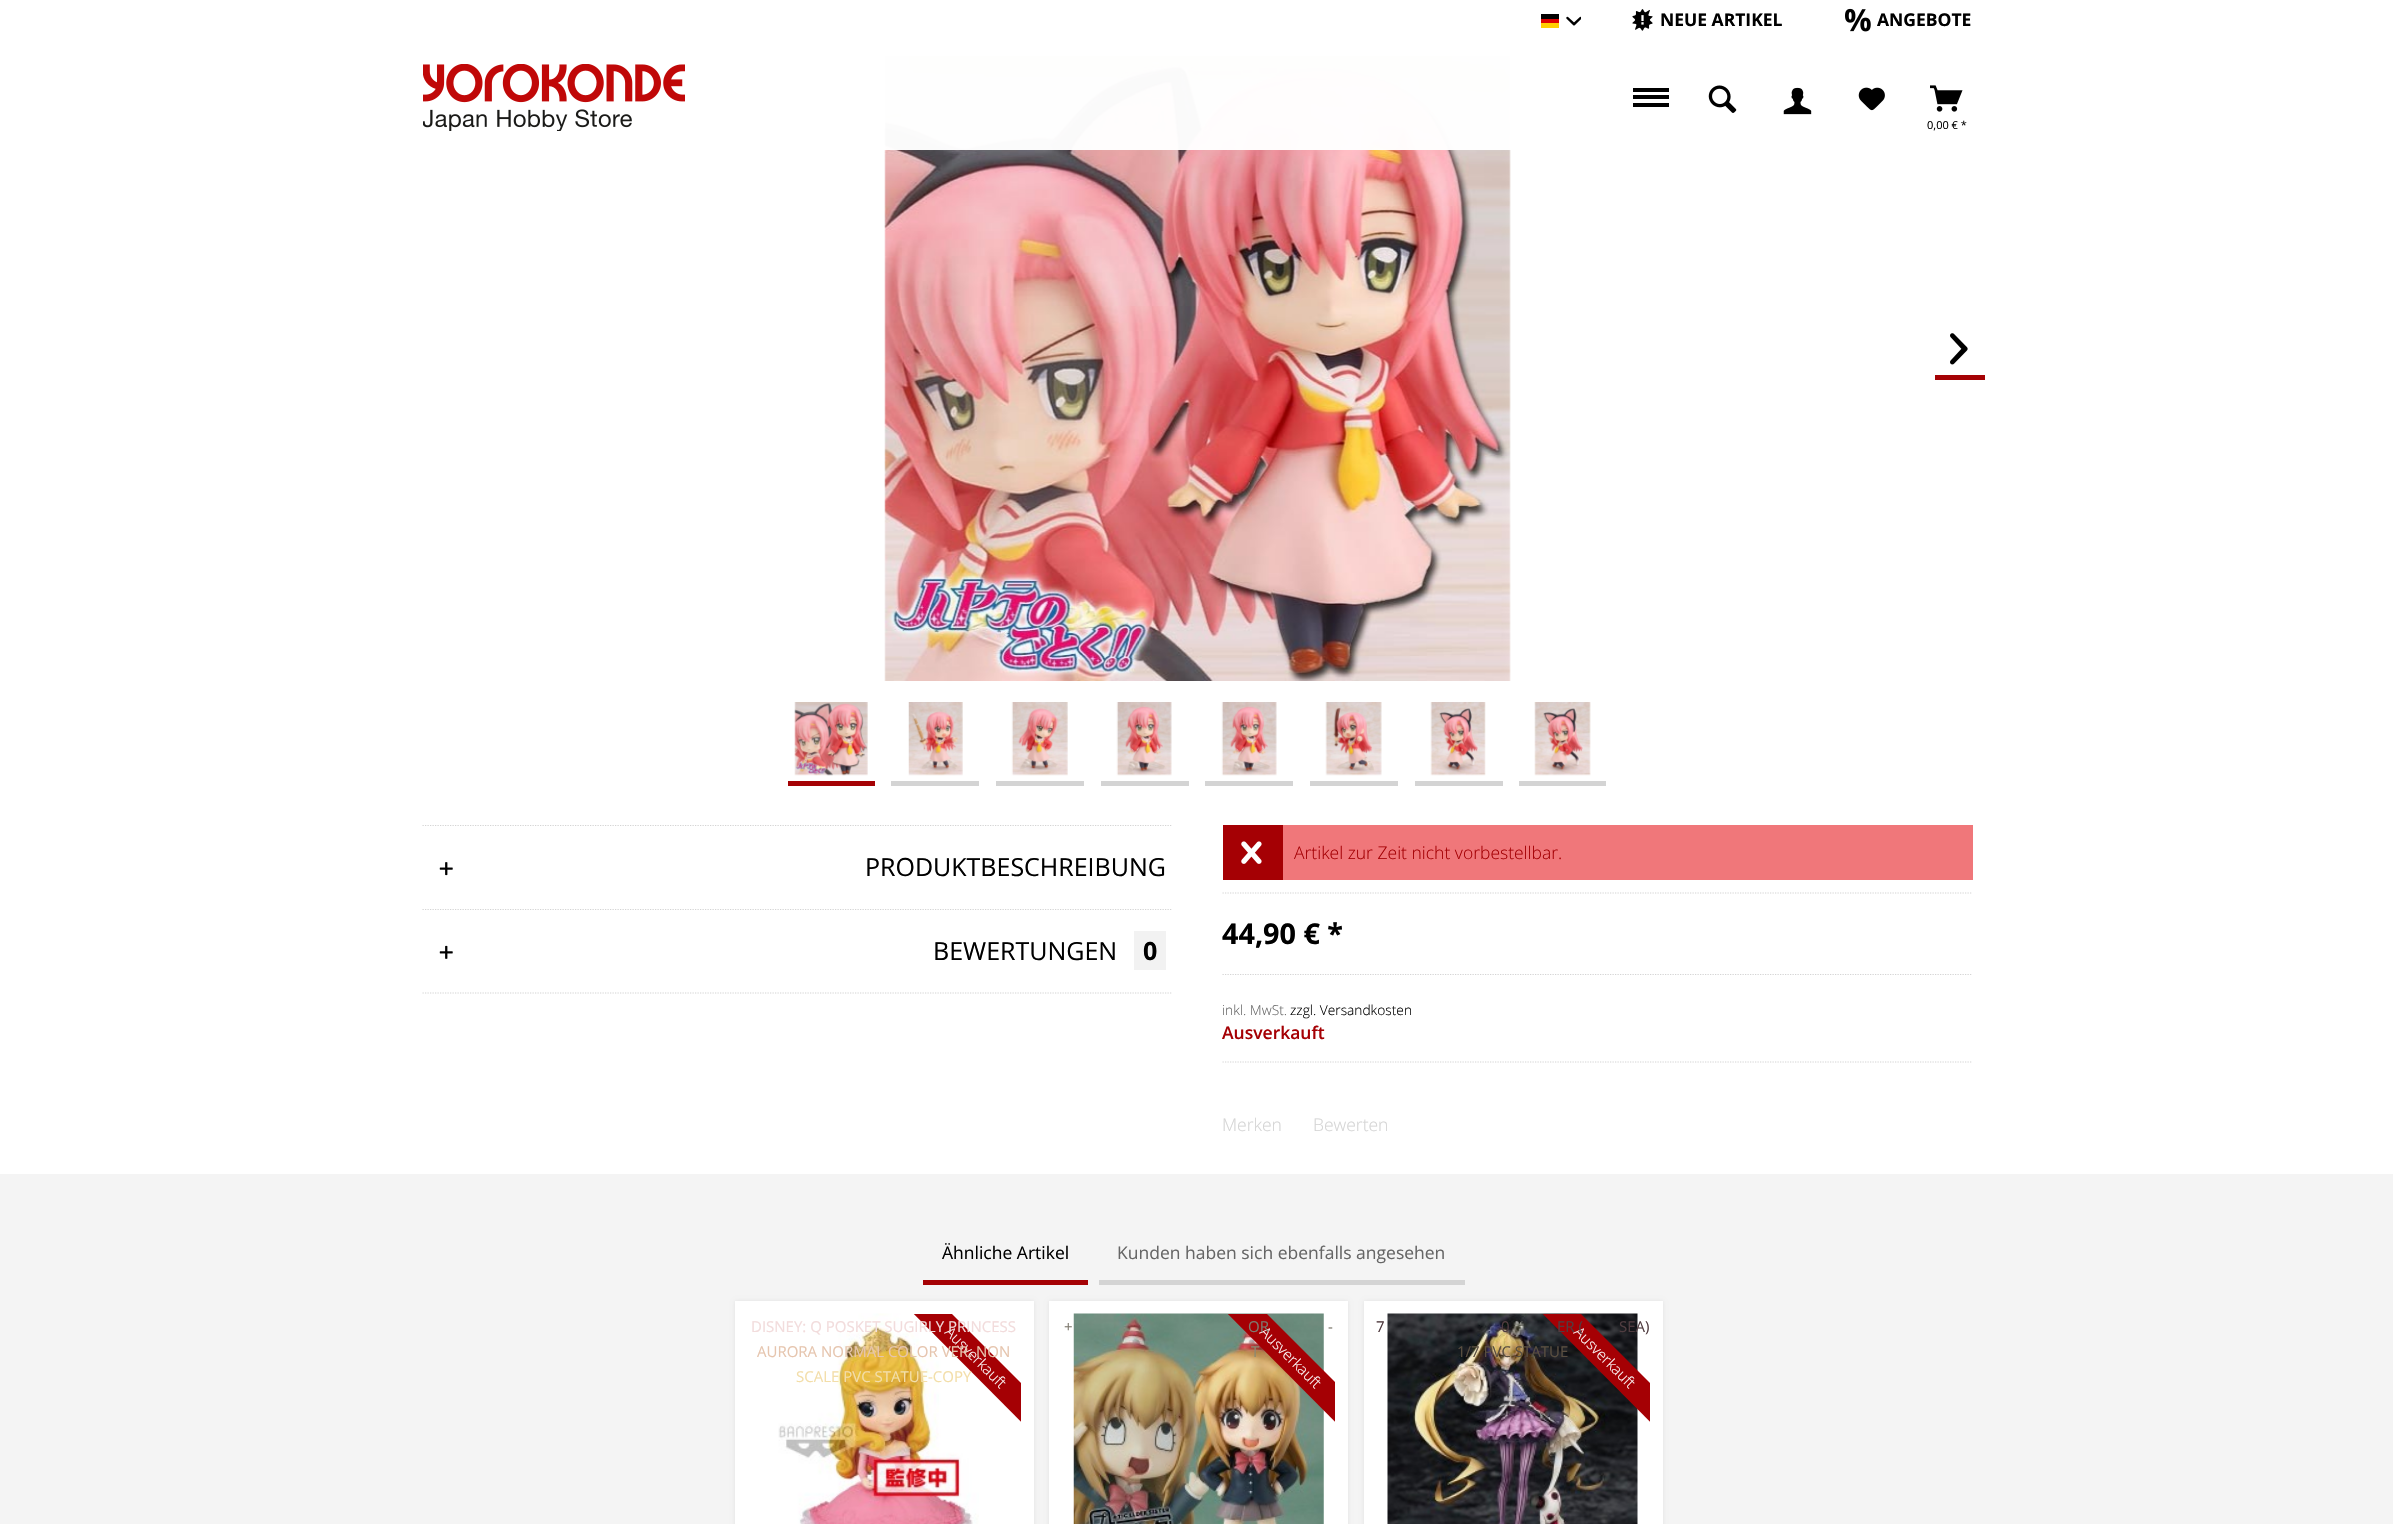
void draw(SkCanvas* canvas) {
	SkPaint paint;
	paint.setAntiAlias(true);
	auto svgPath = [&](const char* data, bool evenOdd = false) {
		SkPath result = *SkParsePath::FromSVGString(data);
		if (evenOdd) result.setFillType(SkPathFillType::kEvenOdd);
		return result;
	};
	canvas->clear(0xfff4f4f4);
	paint.setColor(0xffffffff);
	canvas->drawRect(SkRect::MakeXYWH(0, 0, 2393, 1174), paint);
	canvas->drawImageRect(SkImages::DeferredFromEncodedData(SkData::MakeFromFileName("img9.png")), SkRect::MakeXYWH(884, 56, 627, 625), SkSamplingOptions());
	paint.setColor(0xf7ffffff);
	canvas->drawRect(SkRect::MakeXYWH(884, 56, 627, 94), paint);
	paint.setColor(0xff000000);
	canvas->drawRect(SkRect::MakeXYWH(1541, 14, 18, 5), paint);
	paint.setColor(0xffdd0000);
	canvas->drawRect(SkRect::MakeXYWH(1541, 19, 18, 4), paint);
	paint.setColor(0xffffce00);
	canvas->drawRect(SkRect::MakeXYWH(1541, 23, 18, 5), paint);
	canvas->drawImageRect(SkImages::DeferredFromEncodedData(SkData::MakeFromFileName("img1.png")), SkRect::MakeXYWH(1566, 16, 15, 10), SkSamplingOptions());
	canvas->drawImageRect(SkImages::DeferredFromEncodedData(SkData::MakeFromFileName("img2.png")), SkRect::MakeXYWH(1632, 9, 21, 22), SkSamplingOptions());
	SkFont f1(fontMgr->matchFamilyStyle("Open Sans", SkFontStyle::Bold()), 17.5);
	f1.setSubpixel(true);
	paint.setColor(0xff000000);
	canvas->drawString("NEUE ARTIKEL", 1660, 26, f1, paint);
	canvas->drawImageRect(SkImages::DeferredFromEncodedData(SkData::MakeFromFileName("img3.png")), SkRect::MakeXYWH(1845, 8, 26, 24), SkSamplingOptions());
	canvas->drawString("ANGEBOTE", 1877, 26, f1, paint);
	canvas->drawImageRect(SkImages::DeferredFromEncodedData(SkData::MakeFromFileName("img4.png")), SkRect::MakeXYWH(423, 64, 262, 67), SkSamplingOptions());
	canvas->drawRect(SkRect::MakeXYWH(1633, 95, 36, 4), paint);
	canvas->drawRect(SkRect::MakeXYWH(1633, 88, 36, 4), paint);
	canvas->drawRect(SkRect::MakeXYWH(1633, 103, 36, 4), paint);
	canvas->drawImageRect(SkImages::DeferredFromEncodedData(SkData::MakeFromFileName("img5.png")), SkRect::MakeXYWH(1708, 85, 29, 28), SkSamplingOptions());
	canvas->drawImageRect(SkImages::DeferredFromEncodedData(SkData::MakeFromFileName("img6.png")), SkRect::MakeXYWH(1783, 87, 29, 28), SkSamplingOptions());
	canvas->drawImageRect(SkImages::DeferredFromEncodedData(SkData::MakeFromFileName("img7.png")), SkRect::MakeXYWH(1858, 87, 27, 24), SkSamplingOptions());
	canvas->drawImageRect(SkImages::DeferredFromEncodedData(SkData::MakeFromFileName("img8.png")), SkRect::MakeXYWH(1930, 85, 33, 27), SkSamplingOptions());
	SkFont f2(fontMgr->matchFamilyStyle("Open Sans", SkFontStyle::Normal()), 11);
	f2.setSubpixel(true);
	canvas->drawString("0,00 € *", 1927, 129, f2, paint);
	paint.setColor(0xffa50205);
	canvas->drawRect(SkRect::MakeXYWH(1935, 375, 50, 5), paint);
	canvas->drawImageRect(SkImages::DeferredFromEncodedData(SkData::MakeFromFileName("img10.png")), SkRect::MakeXYWH(1950, 333, 18, 32), SkSamplingOptions());
	canvas->drawRect(SkRect::MakeXYWH(788, 781, 87, 5), paint);
	canvas->drawImageRect(SkImages::DeferredFromEncodedData(SkData::MakeFromFileName("img11.png")), SkRect::MakeXYWH(794, 702, 74, 74), SkSamplingOptions());
	paint.setColor(0xffd4d4d4);
	canvas->drawPath(svgPath("M891 699V786H979V699V781H891Z"), paint);
	canvas->drawImageRect(SkImages::DeferredFromEncodedData(SkData::MakeFromFileName("img12.png")), SkRect::MakeXYWH(908, 702, 55, 74), SkSamplingOptions());
	canvas->drawPath(svgPath("M996 699V786H1084V699V781H996Z"), paint);
	canvas->drawImageRect(SkImages::DeferredFromEncodedData(SkData::MakeFromFileName("img13.png")), SkRect::MakeXYWH(1011, 702, 57, 74), SkSamplingOptions());
	canvas->drawPath(svgPath("M1101 699V786H1189V699V781H1101Z"), paint);
	canvas->drawImageRect(SkImages::DeferredFromEncodedData(SkData::MakeFromFileName("img14.png")), SkRect::MakeXYWH(1116, 702, 56, 74), SkSamplingOptions());
	canvas->drawPath(svgPath("M1205 781V786H1293V699H1292V781Z"), paint);
	paint.setStroke(true);
	paint.setStrokeWidth(1);
	paint.setColor(0xffffffff);
	canvas->drawRect(SkRect::MakeXYWH(1205.5, 694.5, 87, 86), paint);
	canvas->drawImageRect(SkImages::DeferredFromEncodedData(SkData::MakeFromFileName("img14.png")), SkRect::MakeXYWH(1221, 702, 56, 74), SkSamplingOptions());
	paint.setStroke(false);
	paint.setColor(0xffd4d4d4);
	canvas->drawPath(svgPath("M1310 781V786H1398V699V781Z"), paint);
	canvas->drawImageRect(SkImages::DeferredFromEncodedData(SkData::MakeFromFileName("img15.png")), SkRect::MakeXYWH(1325, 702, 57, 74), SkSamplingOptions());
	canvas->drawPath(svgPath("M1415 781V786H1503V699H1502V781Z"), paint);
	paint.setStroke(true);
	paint.setColor(0xffffffff);
	canvas->drawRect(SkRect::MakeXYWH(1415.5, 694.5, 87, 86), paint);
	canvas->drawImageRect(SkImages::DeferredFromEncodedData(SkData::MakeFromFileName("img16.png")), SkRect::MakeXYWH(1430, 702, 56, 74), SkSamplingOptions());
	paint.setStroke(false);
	paint.setColor(0xffd4d4d4);
	canvas->drawRect(SkRect::MakeXYWH(1519, 781, 87, 5), paint);
	canvas->drawImageRect(SkImages::DeferredFromEncodedData(SkData::MakeFromFileName("img17.png")), SkRect::MakeXYWH(1534, 702, 57, 74), SkSamplingOptions());
	paint.setStroke(true);
	paint.setStrokeWidth(1.2);
	paint.setPathEffect(SkDashPathEffect::Make({{1.25f, 1.25f}}, 0));
	canvas->drawPath(svgPath("M422.5 825.5H1172.5"), paint);
	paint.setPathEffect(nullptr);
	paint.setPathEffect(SkDashPathEffect::Make({{1.25f, 1.25f}}, 0));
	canvas->drawPath(svgPath("M422.5 909.5H1172.5"), paint);
	paint.setPathEffect(nullptr);
	canvas->drawImageRect(SkImages::DeferredFromEncodedData(SkData::MakeFromFileName("img18.png")), SkRect::MakeXYWH(439, 862, 14, 14), SkSamplingOptions());
	SkFont f3(fontMgr->matchFamilyStyle("Open Sans", SkFontStyle::Normal()), 25);
	f3.setSubpixel(true);
	paint.setStroke(false);
	paint.setColor(0xff000000);
	canvas->drawString("PRODUKTBESCHREIBUNG", 865, 876, f3, paint);
	paint.setStroke(true);
	paint.setColor(0xffd4d4d4);
	paint.setPathEffect(SkDashPathEffect::Make({{1.25f, 1.25f}}, 0));
	canvas->drawPath(svgPath("M422.5 993H1172.5"), paint);
	paint.setPathEffect(nullptr);
	canvas->drawImageRect(SkImages::DeferredFromEncodedData(SkData::MakeFromFileName("img19.png")), SkRect::MakeXYWH(439, 945, 14, 14), SkSamplingOptions());
	paint.setStroke(false);
	paint.setColor(0xff000000);
	canvas->drawString("BEWERTUNGEN", 933, 960, f3, paint);
	paint.setColor(0xfff2f2f2);
	canvas->drawRect(SkRect::MakeXYWH(1134, 931, 32, 39), paint);
	SkFont f4(fontMgr->matchFamilyStyle("Open Sans", SkFontStyle::Bold()), 25);
	f4.setSubpixel(true);
	paint.setColor(0xff000000);
	canvas->drawString("0", 1143, 960, f4, paint);
	paint.setColor(0xfff0777a);
	canvas->drawRect(SkRect::MakeXYWH(1283, 825, 690, 55), paint);
	paint.setColor(0xffa50004);
	canvas->drawRect(SkRect::MakeXYWH(1223, 825, 60, 55), paint);
	canvas->drawImageRect(SkImages::DeferredFromEncodedData(SkData::MakeFromFileName("img20.png")), SkRect::MakeXYWH(1241, 841, 21, 23), SkSamplingOptions());
	SkFont f5(fontMgr->matchFamilyStyle("Open Sans", SkFontStyle(300, SkFontStyle::kNormal_Width, SkFontStyle::kUpright_Slant)), 17.5);
	f5.setSubpixel(true);
	canvas->drawString("Artikel zur Zeit nicht vorbestellbar.", 1294, 859, f5, paint);
	paint.setStroke(true);
	paint.setColor(0xffd4d4d4);
	paint.setPathEffect(SkDashPathEffect::Make({{1.25f, 1.25f}}, 0));
	canvas->drawPath(svgPath("M1222.5 893H1972.5"), paint);
	paint.setPathEffect(nullptr);
	paint.setPathEffect(SkDashPathEffect::Make({{1.25f, 1.25f}}, 0));
	canvas->drawPath(svgPath("M1222.5 974.5H1972.5"), paint);
	paint.setPathEffect(nullptr);
	SkFont f6(fontMgr->matchFamilyStyle("Open Sans", SkFontStyle::Bold()), 28.75);
	f6.setSubpixel(true);
	paint.setStroke(false);
	paint.setColor(0xff000000);
	canvas->drawString("44,90 € *", 1222, 944, f6, paint);
	paint.setStroke(true);
	paint.setColor(0xffd4d4d4);
	paint.setPathEffect(SkDashPathEffect::Make({{1.25f, 1.25f}}, 0));
	canvas->drawPath(svgPath("M1222.5 1062H1972.5"), paint);
	paint.setPathEffect(nullptr);
	SkFont f7(fontMgr->matchFamilyStyle("Open Sans", SkFontStyle(300, SkFontStyle::kNormal_Width, SkFontStyle::kUpright_Slant)), 13.75);
	f7.setSubpixel(true);
	paint.setStroke(false);
	paint.setColor(0xff666666);
	canvas->drawString("inkl. MwSt.", 1222, 1015, f7, paint);
	paint.setColor(0xff000000);
	canvas->drawString("zzgl. Versandkosten", 1290, 1015, f7, paint);
	SkFont f8(fontMgr->matchFamilyStyle("Open Sans", SkFontStyle(600, SkFontStyle::kNormal_Width, SkFontStyle::kUpright_Slant)), 17.5);
	f8.setSubpixel(true);
	paint.setColor(0xffa50004);
	canvas->drawString("Ausverkauft", 1222, 1039, f8, paint);
	paint.setColor(0xffd4d4d4);
	canvas->drawString("Merken", 1222, 1131, f5, paint);
	canvas->drawString("Bewerten", 1313, 1131, f5, paint);
	paint.setColor(0xffa50205);
	canvas->drawPath(svgPath("M923 1280V1285H1088V1234V1232V1280Z"), paint);
	SkFont f9(fontMgr->matchFamilyStyle("Open Sans", SkFontStyle::Normal()), 17.5);
	f9.setSubpixel(true);
	paint.setColor(0xff000000);
	canvas->drawString("Ähnliche Artikel", 942, 1259, f9, paint);
	paint.setColor(0xffd4d4d4);
	canvas->drawRect(SkRect::MakeXYWH(1099, 1280, 366, 5), paint);
	paint.setColor(0xff666666);
	canvas->drawString("Kunden haben sich ebenfalls angesehen", 1117, 1259, f9, paint);
	paint.setColor(0x12000000);
	paint.setMaskFilter(SkMaskFilter::MakeBlur(kNormal_SkBlurStyle, 2));
	canvas->drawRect(SkRect::MakeXYWH(735, 1301, 299, 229), paint);
	paint.setMaskFilter(nullptr);
	paint.setColor(0xffffffff);
	canvas->drawRect(SkRect::MakeXYWH(735, 1301, 299, 223), paint);
	canvas->drawImageRect(SkImages::DeferredFromEncodedData(SkData::MakeFromFileName("img21.png")), SkRect::MakeXYWH(778, 1313, 201, 211), SkSamplingOptions());
	canvas->save();
	canvas->clipRect(SkRect::MakeXYWH(909, 1314, 112, 112));
	paint.setColor(0xffa50004);
	canvas->drawPath(svgPath("M906 1268L1065 1427L1046 1447L887 1287Z"), paint);
	canvas->restore();
	SkFont f10(fontMgr->matchFamilyStyle("Open Sans", SkFontStyle(300, SkFontStyle::kNormal_Width, SkFontStyle::kUpright_Slant)), 15);
	f10.setSubpixel(true);
	paint.setColor(0xffffffff);
	canvas->save();
	canvas->rotate(45, 944, 1333);
	canvas->drawString("Ausverkauft", 944, 1333, f10, paint);
	canvas->restore();
	SkFont f11(fontMgr->matchFamilyStyle("Open Sans", SkFontStyle::Normal()), 15);
	f11.setSubpixel(true);
	paint.setColor(0xfff2dcdc);
	canvas->drawString("DISNEY: Q POSKET SUGIRLY PRINCESS", 751, 1332, f11, paint);
	paint.setColor(0xffe6c5ae);
	canvas->drawString("AURORA NORMAL COLOR VER. NON", 757, 1357, f11, paint);
	paint.setColor(0xfff3dea9);
	canvas->drawString("SCALE PVC STATUE-COPY", 796, 1382, f11, paint);
	paint.setColor(0x12000000);
	paint.setMaskFilter(SkMaskFilter::MakeBlur(kNormal_SkBlurStyle, 2));
	canvas->drawRect(SkRect::MakeXYWH(1049, 1301, 299, 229), paint);
	paint.setMaskFilter(nullptr);
	paint.setColor(0xffffffff);
	canvas->drawRect(SkRect::MakeXYWH(1049, 1301, 299, 223), paint);
	canvas->drawImageRect(SkImages::DeferredFromEncodedData(SkData::MakeFromFileName("img22.png")), SkRect::MakeXYWH(1073, 1313, 251, 211), SkSamplingOptions());
	paint.setColor(0xff7e796e);
	canvas->drawString("+", 1064, 1332, f11, paint);
	canvas->save();
	canvas->clipRect(SkRect::MakeXYWH(1223, 1314, 112, 112));
	paint.setColor(0xffa50004);
	canvas->drawPath(svgPath("M1221 1268L1380 1427L1360 1447L1201 1287Z"), paint);
	canvas->restore();
	paint.setColor(0xffffffff);
	canvas->save();
	canvas->rotate(45, 1259, 1333);
	canvas->drawString("Ausverkauft", 1259, 1333, f10, paint);
	canvas->restore();
	paint.setColor(0xff7e796e);
	canvas->drawString("OR", 1248, 1332, f11, paint);
	canvas->drawString("-", 1328, 1332, f11, paint);
	paint.setColor(0xff8b8a71);
	canvas->drawString("T", 1251, 1357, f11, paint);
	paint.setColor(0x12000000);
	paint.setMaskFilter(SkMaskFilter::MakeBlur(kNormal_SkBlurStyle, 2));
	canvas->drawRect(SkRect::MakeXYWH(1364, 1301, 299, 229), paint);
	paint.setMaskFilter(nullptr);
	paint.setColor(0xffffffff);
	canvas->drawRect(SkRect::MakeXYWH(1364, 1301, 299, 223), paint);
	canvas->drawImageRect(SkImages::DeferredFromEncodedData(SkData::MakeFromFileName("img23.png")), SkRect::MakeXYWH(1387, 1313, 251, 211), SkSamplingOptions());
	paint.setColor(0xff503c40);
	canvas->drawString("7", 1376, 1332, f11, paint);
	canvas->drawString("0", 1501, 1332, f11, paint);
	canvas->save();
	canvas->clipRect(SkRect::MakeXYWH(1538, 1314, 112, 112));
	paint.setColor(0xffa50004);
	canvas->drawPath(svgPath("M1535 1268L1694 1427L1675 1447L1516 1287Z"), paint);
	canvas->restore();
	paint.setColor(0xffffffff);
	canvas->save();
	canvas->rotate(45, 1573, 1333);
	canvas->drawString("Ausverkauft", 1573, 1333, f10, paint);
	canvas->restore();
	paint.setColor(0xff503c40);
	canvas->drawString("ER (", 1557, 1332, f11, paint);
	canvas->drawString("SEA)", 1619, 1332, f11, paint);
	paint.setColor(0xff594e40);
	canvas->drawString("1/7 PVC STATUE", 1457, 1357, f11, paint);
}
